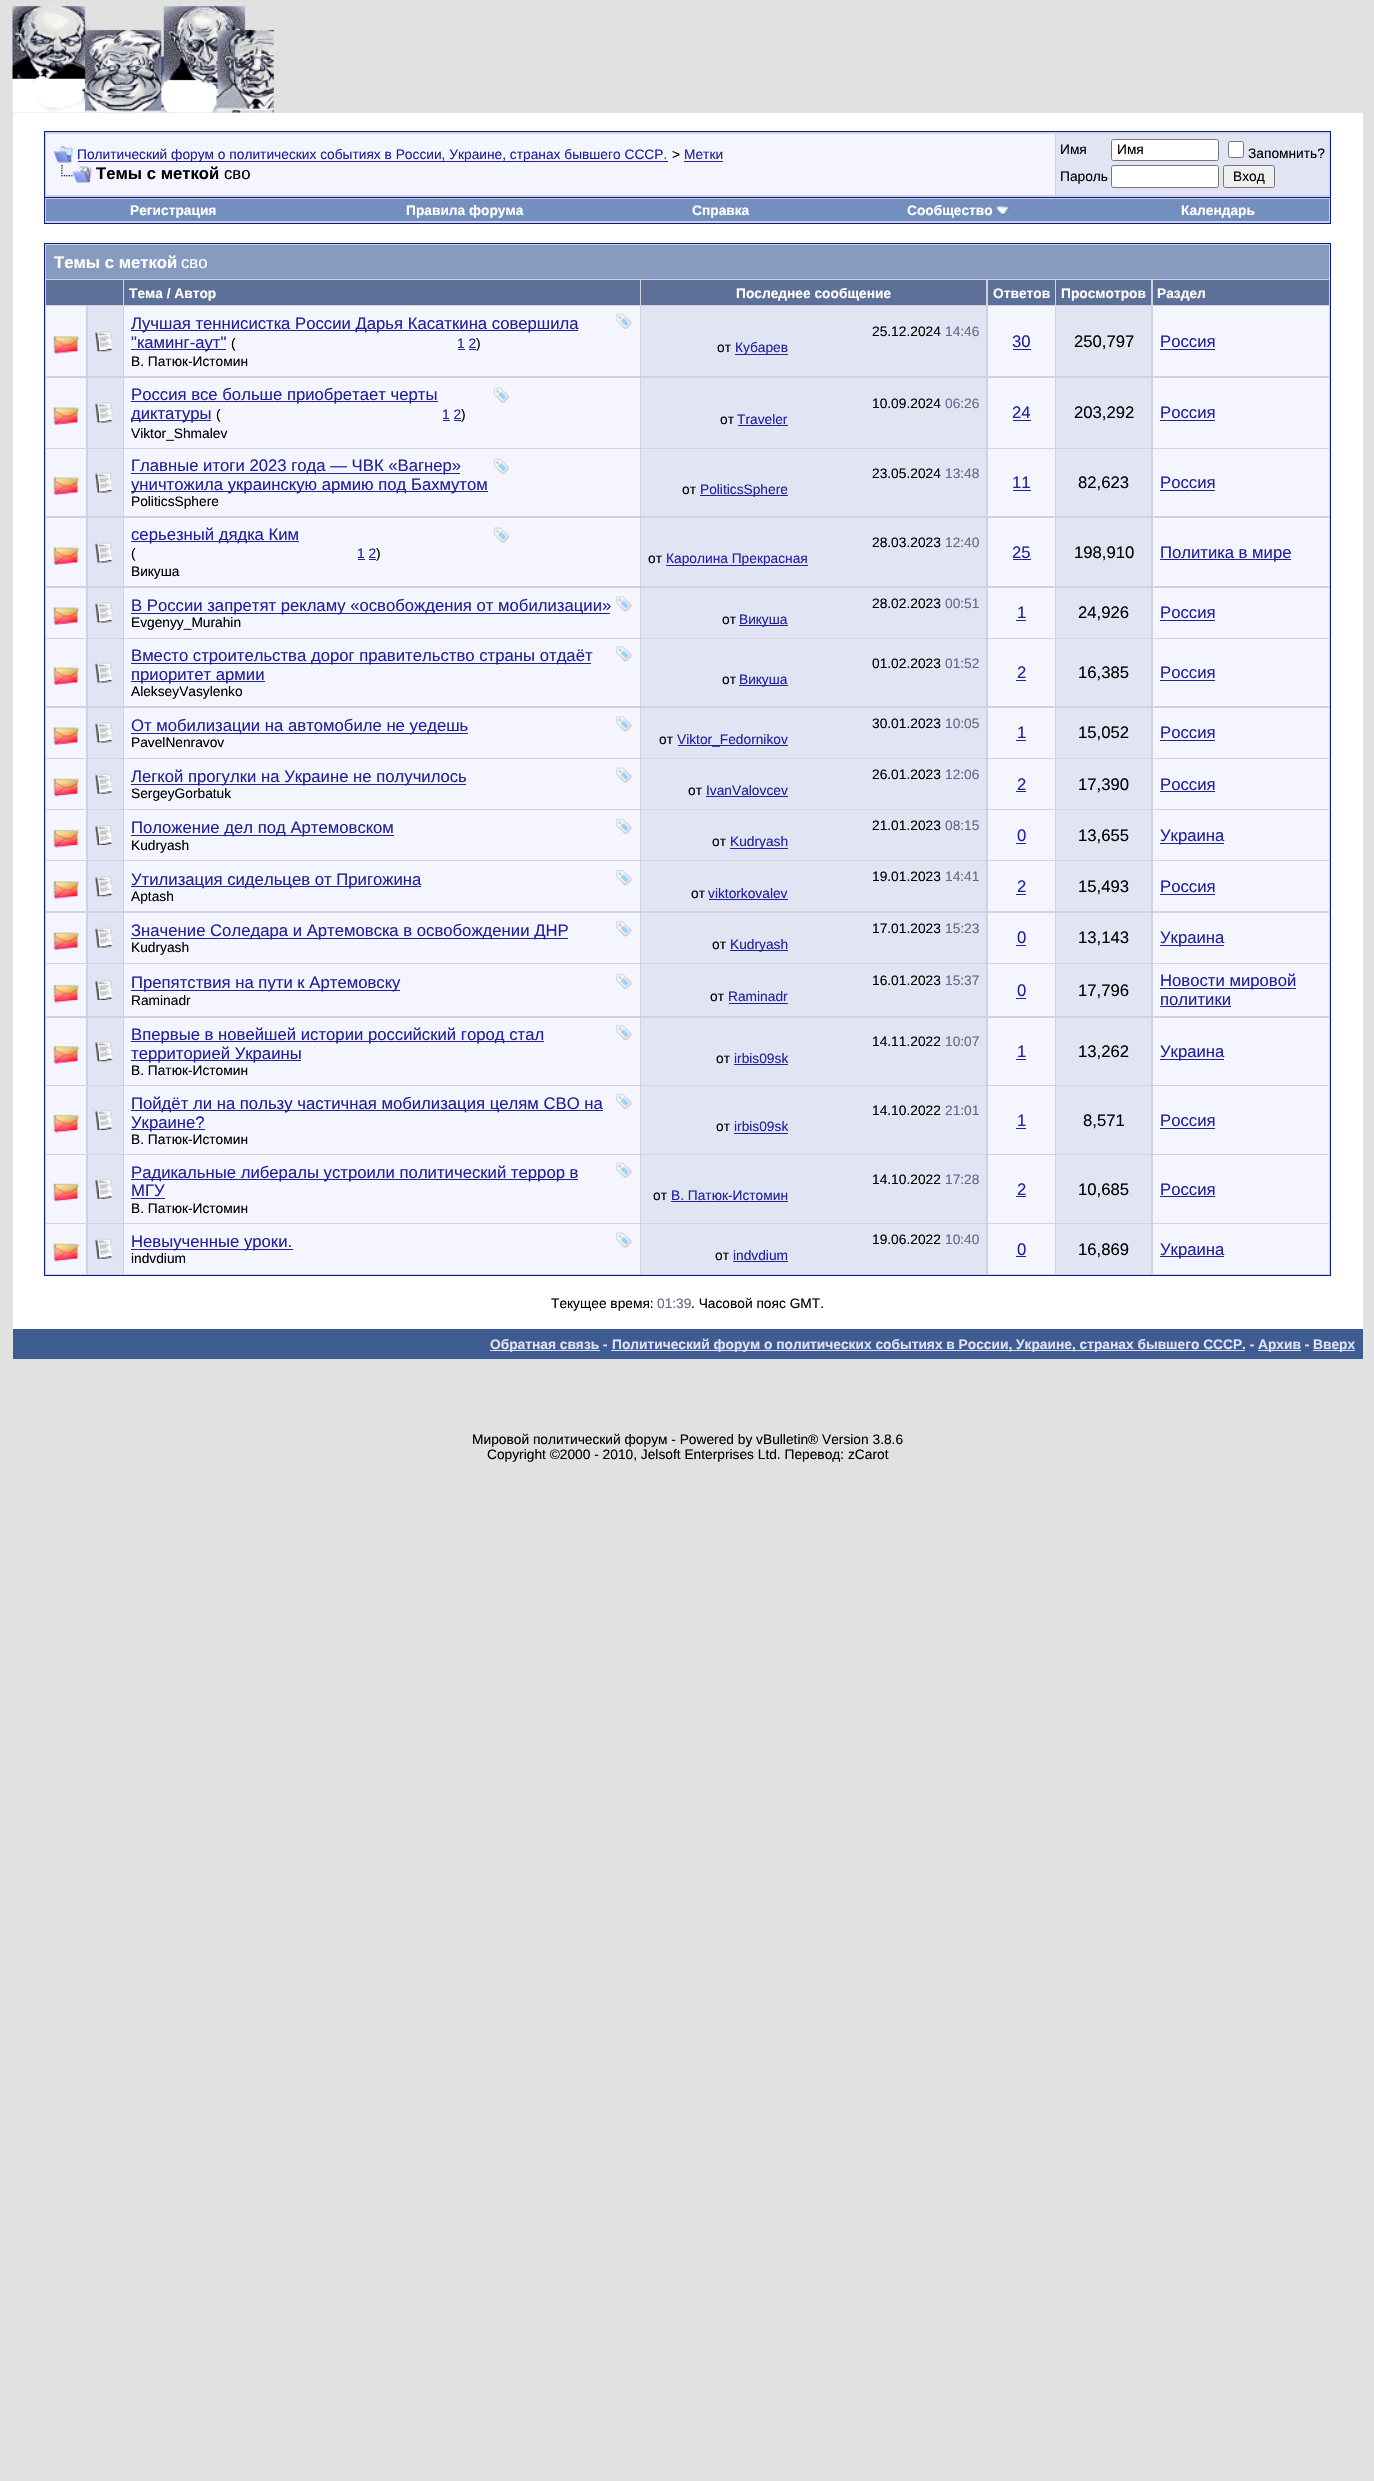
void draw(SkCanvas* canvas) {
	SkPaint paint;
	paint.setAntiAlias(true);
	canvas->clear(0xffe1e1e2);
	canvas->drawImageRect(SkImages::DeferredFromEncodedData(SkData::MakeFromFileName("img1.png")), SkRect::MakeXYWH(12, 6, 262, 107), SkSamplingOptions());
	paint.setColor(0xffffffff);
	canvas->drawRect(SkRect::MakeXYWH(13, 113, 1350, 1216), paint);
	paint.setColor(0xffd1d1e1);
	canvas->drawRect(SkRect::MakeXYWH(44.5, 131.5, 1286, 66), paint);
	paint.setStroke(true);
	paint.setStrokeWidth(1);
	paint.setColor(0xff0b198c);
	canvas->drawRect(SkRect::MakeXYWH(44.5, 131.5, 1286, 66), paint);
	paint.setStroke(false);
	paint.setColor(0xfff5f5ff);
	canvas->drawRect(SkRect::MakeXYWH(46, 134, 1009, 61), paint);
	canvas->drawImageRect(SkImages::DeferredFromEncodedData(SkData::MakeFromFileName("img2.png")), SkRect::MakeXYWH(53, 146, 20, 17), SkSamplingOptions());
	paint.setColor(0xff22229c);
	canvas->drawRect(SkRect::MakeXYWH(78, 161, 590, 1), paint);
	SkFont f1(fontMgr->matchFamilyStyle("Liberation Sans", SkFontStyle::Normal()), 13.75);
	f1.setSubpixel(true);
	canvas->drawString("Политический форум о политических событиях в России, Украине, странах бывшего СССР.", 77, 159, f1, paint);
	paint.setColor(0xff000000);
	canvas->drawString(">", 672, 159, f1, paint);
	paint.setColor(0xff22229c);
	canvas->drawString("Метки", 684, 159, f1, paint);
	canvas->drawRect(SkRect::MakeXYWH(684, 161, 39, 1), paint);
	canvas->drawImageRect(SkImages::DeferredFromEncodedData(SkData::MakeFromFileName("img3.png")), SkRect::MakeXYWH(61, 165, 31, 18), SkSamplingOptions());
	SkFont f2(fontMgr->matchFamilyStyle("Liberation Sans", SkFontStyle::Bold()), 16.7);
	f2.setSubpixel(true);
	paint.setColor(0xff000000);
	canvas->drawString("Темы с меткой", 96, 179, f2, paint);
	SkFont f3(fontMgr->matchFamilyStyle("Liberation Sans", SkFontStyle::Normal()), 16.7);
	f3.setSubpixel(true);
	canvas->drawString("сво", 224, 179, f3, paint);
	paint.setColor(0xffe1e4f2);
	canvas->drawRect(SkRect::MakeXYWH(1056, 134, 273, 61), paint);
	paint.setColor(0xff000000);
	canvas->drawString("Имя", 1060, 154, f1, paint);
	paint.setColor(0xffffffff);
	canvas->drawRoundRect(SkRect::MakeXYWH(1111.5, 139.5, 107, 21), 2, 2, paint);
	paint.setStroke(true);
	paint.setColor(0xff767676);
	canvas->drawRoundRect(SkRect::MakeXYWH(1111.5, 139.5, 107, 21), 2, 2, paint);
	paint.setStroke(false);
	paint.setColor(0xff000000);
	canvas->drawString("Имя", 1117, 154, f1, paint);
	paint.setColor(0xffffffff);
	canvas->drawRoundRect(SkRect::MakeXYWH(1228.5, 141.5, 15, 16), 2, 2, paint);
	paint.setStroke(true);
	paint.setColor(0xff767676);
	canvas->drawRoundRect(SkRect::MakeXYWH(1228.5, 141.5, 15, 16), 2, 2, paint);
	paint.setStroke(false);
	paint.setColor(0xff000000);
	canvas->drawString("Запомнить?", 1248, 158, f1, paint);
	canvas->drawString("Пароль", 1060, 181, f1, paint);
	paint.setColor(0xffffffff);
	canvas->drawRoundRect(SkRect::MakeXYWH(1111.5, 165.5, 107, 22), 2, 2, paint);
	paint.setStroke(true);
	paint.setColor(0xff767676);
	canvas->drawRoundRect(SkRect::MakeXYWH(1111.5, 165.5, 107, 22), 2, 2, paint);
	paint.setStroke(false);
	paint.setColor(0xffefefef);
	canvas->drawRoundRect(SkRect::MakeXYWH(1223.5, 165.5, 51, 22), 2, 2, paint);
	paint.setStroke(true);
	paint.setColor(0xff767676);
	canvas->drawRoundRect(SkRect::MakeXYWH(1223.5, 165.5, 51, 22), 2, 2, paint);
	paint.setStroke(false);
	paint.setColor(0xff000000);
	canvas->drawString("Вход", 1233, 181, f1, paint);
	paint.setColor(0xffd1d1e1);
	canvas->drawRect(SkRect::MakeXYWH(45, 198, 1285, 25), paint);
	paint.setColor(0xff0b198c);
	canvas->drawRect(SkRect::MakeXYWH(1330, 198, 1, 26), paint);
	canvas->drawRect(SkRect::MakeXYWH(44, 223, 1287, 1), paint);
	canvas->drawRect(SkRect::MakeXYWH(44, 198, 1, 26), paint);
	paint.setColor(0xff738fbf);
	canvas->drawRect(SkRect::MakeXYWH(46, 199, 1283, 22), paint);
	SkFont f4(fontMgr->matchFamilyStyle("Liberation Sans", SkFontStyle::Bold()), 13.75);
	f4.setSubpixel(true);
	paint.setColor(0xffffffff);
	canvas->drawString("Регистрация", 130, 215, f4, paint);
	canvas->drawString("Правила форума", 406, 215, f4, paint);
	canvas->drawString("Справка", 692, 215, f4, paint);
	canvas->drawString("Сообщество", 907, 215, f4, paint);
	canvas->drawImageRect(SkImages::DeferredFromEncodedData(SkData::MakeFromFileName("img4.png")), SkRect::MakeXYWH(996, 206, 14, 9), SkSamplingOptions());
	canvas->drawString("Календарь", 1181, 215, f4, paint);
	paint.setColor(0xffd1d1e1);
	canvas->drawRect(SkRect::MakeXYWH(44.5, 243.5, 1286, 1032), paint);
	paint.setStroke(true);
	paint.setColor(0xff0b198c);
	canvas->drawRect(SkRect::MakeXYWH(44.5, 243.5, 1286, 1032), paint);
	paint.setStroke(false);
	paint.setColor(0xff869bbf);
	canvas->drawRect(SkRect::MakeXYWH(46, 245, 1283, 34), paint);
	paint.setColor(0xffffffff);
	canvas->drawString("Темы с меткой", 54, 268, f2, paint);
	canvas->drawString("сво", 181, 268, f3, paint);
	paint.setColor(0xff5c7099);
	canvas->drawRect(SkRect::MakeXYWH(46, 280, 77, 25), paint);
	canvas->drawRect(SkRect::MakeXYWH(124, 280, 516, 25), paint);
	paint.setColor(0xffffffff);
	canvas->drawString("Тема / Автор", 129, 298, f4, paint);
	paint.setColor(0xff5c7099);
	canvas->drawRect(SkRect::MakeXYWH(641, 280, 345, 25), paint);
	paint.setColor(0xffffffff);
	canvas->drawString("Последнее сообщение", 736, 298, f4, paint);
	paint.setColor(0xff5c7099);
	canvas->drawRect(SkRect::MakeXYWH(988, 280, 67, 25), paint);
	paint.setColor(0xffffffff);
	canvas->drawString("Ответов", 993, 298, f4, paint);
	paint.setColor(0xff5c7099);
	canvas->drawRect(SkRect::MakeXYWH(1056, 280, 95, 25), paint);
	paint.setColor(0xffffffff);
	canvas->drawString("Просмотров", 1061, 298, f4, paint);
	paint.setColor(0xff5c7099);
	canvas->drawRect(SkRect::MakeXYWH(1153, 280, 176, 25), paint);
	paint.setColor(0xffffffff);
	canvas->drawString("Раздел", 1157, 298, f4, paint);
	paint.setColor(0xfff5f5ff);
	canvas->drawRect(SkRect::MakeXYWH(46, 306, 40, 70), paint);
	canvas->drawImageRect(SkImages::DeferredFromEncodedData(SkData::MakeFromFileName("img5.png")), SkRect::MakeXYWH(53, 336, 26, 18), SkSamplingOptions());
	paint.setColor(0xffe1e4f2);
	canvas->drawRect(SkRect::MakeXYWH(88, 306, 35, 70), paint);
	canvas->drawImageRect(SkImages::DeferredFromEncodedData(SkData::MakeFromFileName("img6.png")), SkRect::MakeXYWH(95, 331, 19, 21), SkSamplingOptions());
	paint.setColor(0xfff5f5ff);
	canvas->drawRect(SkRect::MakeXYWH(124, 306, 516, 70), paint);
	paint.setColor(0xff22229c);
	canvas->drawRect(SkRect::MakeXYWH(131, 330, 447, 1), paint);
	canvas->drawString("Лучшая теннисистка России Дарья Касаткина совершила", 131, 329, f3, paint);
	canvas->drawImageRect(SkImages::DeferredFromEncodedData(SkData::MakeFromFileName("img7.png")), SkRect::MakeXYWH(616, 313, 16, 16), SkSamplingOptions());
	canvas->drawRect(SkRect::MakeXYWH(131, 349, 95, 1), paint);
	canvas->drawString("\"каминг-аут\"", 131, 348, f3, paint);
	paint.setColor(0xff000000);
	canvas->drawString("(", 231, 348, f1, paint);
	paint.setColor(0xff22229c);
	canvas->drawString("1 2", 457, 348, f1, paint);
	canvas->drawRect(SkRect::MakeXYWH(458, 349, 7, 1), paint);
	paint.setColor(0xff000000);
	canvas->drawString(")", 476, 348, f1, paint);
	paint.setColor(0xff22229c);
	canvas->drawRect(SkRect::MakeXYWH(469, 349, 7, 1), paint);
	paint.setColor(0xff000000);
	canvas->drawString("В. Патюк-Истомин", 131, 366, f1, paint);
	paint.setColor(0xffe1e4f2);
	canvas->drawRect(SkRect::MakeXYWH(641, 306, 345, 70), paint);
	paint.setColor(0xff000000);
	canvas->drawString("25.12.2024", 872, 336, f1, paint);
	paint.setColor(0xff666686);
	canvas->drawString("14:46", 945, 336, f1, paint);
	paint.setColor(0xff000000);
	canvas->drawString("от", 717, 352, f1, paint);
	paint.setColor(0xff22229c);
	canvas->drawRect(SkRect::MakeXYWH(735, 354, 53, 1), paint);
	canvas->drawString("Кубарев", 735, 352, f1, paint);
	paint.setColor(0xfff5f5ff);
	canvas->drawRect(SkRect::MakeXYWH(988, 306, 67, 70), paint);
	paint.setColor(0xff22229c);
	canvas->drawString("30", 1012, 347, f3, paint);
	canvas->drawRect(SkRect::MakeXYWH(1013, 349, 18, 1), paint);
	paint.setColor(0xffe1e4f2);
	canvas->drawRect(SkRect::MakeXYWH(1056, 306, 95, 70), paint);
	paint.setColor(0xff000000);
	canvas->drawString("250,797", 1074, 347, f3, paint);
	paint.setColor(0xfff5f5ff);
	canvas->drawRect(SkRect::MakeXYWH(1153, 306, 176, 70), paint);
	paint.setColor(0xff22229c);
	canvas->drawString("Россия", 1160, 347, f3, paint);
	canvas->drawRect(SkRect::MakeXYWH(1160, 349, 55, 1), paint);
	paint.setColor(0xfff5f5ff);
	canvas->drawRect(SkRect::MakeXYWH(46, 378, 40, 70), paint);
	canvas->drawImageRect(SkImages::DeferredFromEncodedData(SkData::MakeFromFileName("img8.png")), SkRect::MakeXYWH(53, 407, 26, 18), SkSamplingOptions());
	paint.setColor(0xffe1e4f2);
	canvas->drawRect(SkRect::MakeXYWH(88, 378, 35, 70), paint);
	canvas->drawImageRect(SkImages::DeferredFromEncodedData(SkData::MakeFromFileName("img9.png")), SkRect::MakeXYWH(95, 402, 19, 21), SkSamplingOptions());
	paint.setColor(0xfff5f5ff);
	canvas->drawRect(SkRect::MakeXYWH(124, 378, 516, 70), paint);
	paint.setColor(0xff22229c);
	canvas->drawRect(SkRect::MakeXYWH(131, 401, 307, 1), paint);
	canvas->drawString("Россия все больше приобретает черты", 131, 400, f3, paint);
	canvas->drawImageRect(SkImages::DeferredFromEncodedData(SkData::MakeFromFileName("img10.png")), SkRect::MakeXYWH(493, 387, 16, 16), SkSamplingOptions());
	canvas->drawRect(SkRect::MakeXYWH(131, 420, 80, 1), paint);
	canvas->drawString("диктатуры", 131, 419, f3, paint);
	paint.setColor(0xff000000);
	canvas->drawString("(", 216, 419, f1, paint);
	paint.setColor(0xff22229c);
	canvas->drawString("1 2", 442, 419, f1, paint);
	canvas->drawRect(SkRect::MakeXYWH(443, 420, 7, 1), paint);
	paint.setColor(0xff000000);
	canvas->drawString(")", 461, 419, f1, paint);
	paint.setColor(0xff22229c);
	canvas->drawRect(SkRect::MakeXYWH(454, 420, 7, 1), paint);
	paint.setColor(0xff000000);
	canvas->drawString("Viktor_Shmalev", 131, 438, f1, paint);
	paint.setColor(0xffe1e4f2);
	canvas->drawRect(SkRect::MakeXYWH(641, 378, 345, 70), paint);
	paint.setColor(0xff000000);
	canvas->drawString("10.09.2024", 872, 408, f1, paint);
	paint.setColor(0xff666686);
	canvas->drawString("06:26", 945, 408, f1, paint);
	paint.setColor(0xff000000);
	canvas->drawString("от", 720, 424, f1, paint);
	paint.setColor(0xff22229c);
	canvas->drawString("Traveler", 737, 424, f1, paint);
	canvas->drawRect(SkRect::MakeXYWH(738, 425, 50, 1), paint);
	paint.setColor(0xfff5f5ff);
	canvas->drawRect(SkRect::MakeXYWH(988, 378, 67, 70), paint);
	paint.setColor(0xff22229c);
	canvas->drawString("24", 1012, 418, f3, paint);
	canvas->drawRect(SkRect::MakeXYWH(1013, 420, 18, 1), paint);
	paint.setColor(0xffe1e4f2);
	canvas->drawRect(SkRect::MakeXYWH(1056, 378, 95, 70), paint);
	paint.setColor(0xff000000);
	canvas->drawString("203,292", 1074, 418, f3, paint);
	paint.setColor(0xfff5f5ff);
	canvas->drawRect(SkRect::MakeXYWH(1153, 378, 176, 70), paint);
	paint.setColor(0xff22229c);
	canvas->drawString("Россия", 1160, 418, f3, paint);
	canvas->drawRect(SkRect::MakeXYWH(1160, 420, 55, 1), paint);
	paint.setColor(0xfff5f5ff);
	canvas->drawRect(SkRect::MakeXYWH(46, 449, 40, 67), paint);
	canvas->drawImageRect(SkImages::DeferredFromEncodedData(SkData::MakeFromFileName("img8.png")), SkRect::MakeXYWH(53, 477, 26, 18), SkSamplingOptions());
	paint.setColor(0xffe1e4f2);
	canvas->drawRect(SkRect::MakeXYWH(88, 449, 35, 67), paint);
	canvas->drawImageRect(SkImages::DeferredFromEncodedData(SkData::MakeFromFileName("img9.png")), SkRect::MakeXYWH(95, 472, 19, 21), SkSamplingOptions());
	paint.setColor(0xfff5f5ff);
	canvas->drawRect(SkRect::MakeXYWH(124, 449, 516, 67), paint);
	paint.setColor(0xff22229c);
	canvas->drawRect(SkRect::MakeXYWH(131, 473, 329, 1), paint);
	canvas->drawString("Главные итоги 2023 года — ЧВК «Вагнер»", 131, 471, f3, paint);
	canvas->drawImageRect(SkImages::DeferredFromEncodedData(SkData::MakeFromFileName("img11.png")), SkRect::MakeXYWH(493, 458, 16, 16), SkSamplingOptions());
	canvas->drawRect(SkRect::MakeXYWH(131, 491, 357, 1), paint);
	canvas->drawString("уничтожила украинскую армию под Бахмутом", 131, 490, f3, paint);
	paint.setColor(0xff000000);
	canvas->drawString("PoliticsSphere", 131, 506, f1, paint);
	paint.setColor(0xffe1e4f2);
	canvas->drawRect(SkRect::MakeXYWH(641, 449, 345, 67), paint);
	paint.setColor(0xff000000);
	canvas->drawString("23.05.2024", 872, 478, f1, paint);
	paint.setColor(0xff666686);
	canvas->drawString("13:48", 945, 478, f1, paint);
	paint.setColor(0xff000000);
	canvas->drawString("от", 682, 494, f1, paint);
	paint.setColor(0xff22229c);
	canvas->drawRect(SkRect::MakeXYWH(700, 495, 88, 1), paint);
	canvas->drawString("PoliticsSphere", 700, 494, f1, paint);
	paint.setColor(0xfff5f5ff);
	canvas->drawRect(SkRect::MakeXYWH(988, 449, 67, 67), paint);
	paint.setColor(0xff22229c);
	canvas->drawString("11", 1012, 488, f3, paint);
	canvas->drawRect(SkRect::MakeXYWH(1013, 490, 18, 1), paint);
	paint.setColor(0xffe1e4f2);
	canvas->drawRect(SkRect::MakeXYWH(1056, 449, 95, 67), paint);
	paint.setColor(0xff000000);
	canvas->drawString("82,623", 1078, 488, f3, paint);
	paint.setColor(0xfff5f5ff);
	canvas->drawRect(SkRect::MakeXYWH(1153, 449, 176, 67), paint);
	paint.setColor(0xff22229c);
	canvas->drawString("Россия", 1160, 488, f3, paint);
	canvas->drawRect(SkRect::MakeXYWH(1160, 490, 55, 1), paint);
	paint.setColor(0xfff5f5ff);
	canvas->drawRect(SkRect::MakeXYWH(46, 518, 40, 68), paint);
	canvas->drawImageRect(SkImages::DeferredFromEncodedData(SkData::MakeFromFileName("img8.png")), SkRect::MakeXYWH(53, 547, 26, 18), SkSamplingOptions());
	paint.setColor(0xffe1e4f2);
	canvas->drawRect(SkRect::MakeXYWH(88, 518, 35, 68), paint);
	canvas->drawImageRect(SkImages::DeferredFromEncodedData(SkData::MakeFromFileName("img9.png")), SkRect::MakeXYWH(95, 542, 19, 21), SkSamplingOptions());
	paint.setColor(0xfff5f5ff);
	canvas->drawRect(SkRect::MakeXYWH(124, 518, 516, 68), paint);
	paint.setColor(0xff22229c);
	canvas->drawRect(SkRect::MakeXYWH(131, 541, 168, 1), paint);
	canvas->drawString("серьезный дядка Ким", 131, 540, f3, paint);
	canvas->drawImageRect(SkImages::DeferredFromEncodedData(SkData::MakeFromFileName("img10.png")), SkRect::MakeXYWH(493, 527, 16, 16), SkSamplingOptions());
	paint.setColor(0xff000000);
	canvas->drawString("(", 131, 558, f1, paint);
	paint.setColor(0xff22229c);
	canvas->drawString("1 2", 357, 558, f1, paint);
	canvas->drawRect(SkRect::MakeXYWH(358, 559, 7, 1), paint);
	paint.setColor(0xff000000);
	canvas->drawString(")", 376, 558, f1, paint);
	paint.setColor(0xff22229c);
	canvas->drawRect(SkRect::MakeXYWH(369, 559, 7, 1), paint);
	paint.setColor(0xff000000);
	canvas->drawString("Викуша", 131, 576, f1, paint);
	paint.setColor(0xffe1e4f2);
	canvas->drawRect(SkRect::MakeXYWH(641, 518, 345, 68), paint);
	paint.setColor(0xff000000);
	canvas->drawString("28.03.2023", 872, 547, f1, paint);
	paint.setColor(0xff666686);
	canvas->drawString("12:40", 945, 547, f1, paint);
	paint.setColor(0xff000000);
	canvas->drawString("от", 648, 563, f1, paint);
	paint.setColor(0xff22229c);
	canvas->drawRect(SkRect::MakeXYWH(666, 565, 142, 1), paint);
	canvas->drawString("Каролина Прекрасная", 666, 563, f1, paint);
	paint.setColor(0xfff5f5ff);
	canvas->drawRect(SkRect::MakeXYWH(988, 518, 67, 68), paint);
	paint.setColor(0xff22229c);
	canvas->drawString("25", 1012, 558, f3, paint);
	canvas->drawRect(SkRect::MakeXYWH(1013, 559, 18, 1), paint);
	paint.setColor(0xffe1e4f2);
	canvas->drawRect(SkRect::MakeXYWH(1056, 518, 95, 68), paint);
	paint.setColor(0xff000000);
	canvas->drawString("198,910", 1074, 558, f3, paint);
	paint.setColor(0xfff5f5ff);
	canvas->drawRect(SkRect::MakeXYWH(1153, 518, 176, 68), paint);
	paint.setColor(0xff22229c);
	canvas->drawRect(SkRect::MakeXYWH(1160, 559, 131, 1), paint);
	canvas->drawString("Политика в мире", 1160, 558, f3, paint);
	paint.setColor(0xfff5f5ff);
	canvas->drawRect(SkRect::MakeXYWH(46, 588, 40, 50), paint);
	canvas->drawImageRect(SkImages::DeferredFromEncodedData(SkData::MakeFromFileName("img8.png")), SkRect::MakeXYWH(53, 607, 26, 18), SkSamplingOptions());
	paint.setColor(0xffe1e4f2);
	canvas->drawRect(SkRect::MakeXYWH(88, 588, 35, 50), paint);
	canvas->drawImageRect(SkImages::DeferredFromEncodedData(SkData::MakeFromFileName("img9.png")), SkRect::MakeXYWH(95, 602, 19, 21), SkSamplingOptions());
	paint.setColor(0xfff5f5ff);
	canvas->drawRect(SkRect::MakeXYWH(124, 588, 516, 50), paint);
	paint.setColor(0xff22229c);
	canvas->drawRect(SkRect::MakeXYWH(131, 613, 479, 1), paint);
	canvas->drawString("В России запретят рекламу «освобождения от мобилизации»", 131, 611, f3, paint);
	canvas->drawImageRect(SkImages::DeferredFromEncodedData(SkData::MakeFromFileName("img12.png")), SkRect::MakeXYWH(616, 596, 16, 16), SkSamplingOptions());
	paint.setColor(0xff000000);
	canvas->drawString("Evgenyy_Murahin", 131, 627, f1, paint);
	paint.setColor(0xffe1e4f2);
	canvas->drawRect(SkRect::MakeXYWH(641, 588, 345, 50), paint);
	paint.setColor(0xff000000);
	canvas->drawString("28.02.2023", 872, 608, f1, paint);
	paint.setColor(0xff666686);
	canvas->drawString("00:51", 945, 608, f1, paint);
	paint.setColor(0xff000000);
	canvas->drawString("от", 722, 624, f1, paint);
	paint.setColor(0xff22229c);
	canvas->drawRect(SkRect::MakeXYWH(739, 625, 49, 1), paint);
	canvas->drawString("Викуша", 739, 624, f1, paint);
	paint.setColor(0xfff5f5ff);
	canvas->drawRect(SkRect::MakeXYWH(988, 588, 67, 50), paint);
	paint.setColor(0xff22229c);
	canvas->drawString("1", 1017, 618, f3, paint);
	canvas->drawRect(SkRect::MakeXYWH(1016, 620, 10, 1), paint);
	paint.setColor(0xffe1e4f2);
	canvas->drawRect(SkRect::MakeXYWH(1056, 588, 95, 50), paint);
	paint.setColor(0xff000000);
	canvas->drawString("24,926", 1078, 618, f3, paint);
	paint.setColor(0xfff5f5ff);
	canvas->drawRect(SkRect::MakeXYWH(1153, 588, 176, 50), paint);
	paint.setColor(0xff22229c);
	canvas->drawString("Россия", 1160, 618, f3, paint);
	canvas->drawRect(SkRect::MakeXYWH(1160, 620, 55, 1), paint);
	paint.setColor(0xfff5f5ff);
	canvas->drawRect(SkRect::MakeXYWH(46, 639, 40, 67), paint);
	canvas->drawImageRect(SkImages::DeferredFromEncodedData(SkData::MakeFromFileName("img8.png")), SkRect::MakeXYWH(53, 667, 26, 18), SkSamplingOptions());
	paint.setColor(0xffe1e4f2);
	canvas->drawRect(SkRect::MakeXYWH(88, 639, 35, 67), paint);
	canvas->drawImageRect(SkImages::DeferredFromEncodedData(SkData::MakeFromFileName("img9.png")), SkRect::MakeXYWH(95, 662, 19, 21), SkSamplingOptions());
	paint.setColor(0xfff5f5ff);
	canvas->drawRect(SkRect::MakeXYWH(124, 639, 516, 67), paint);
	paint.setColor(0xff22229c);
	canvas->drawRect(SkRect::MakeXYWH(131, 663, 460, 1), paint);
	canvas->drawString("Вместо строительства дорог правительство страны отдаёт", 131, 661, f3, paint);
	canvas->drawImageRect(SkImages::DeferredFromEncodedData(SkData::MakeFromFileName("img12.png")), SkRect::MakeXYWH(616, 646, 16, 16), SkSamplingOptions());
	canvas->drawRect(SkRect::MakeXYWH(131, 681, 134, 1), paint);
	canvas->drawString("приоритет армии", 131, 680, f3, paint);
	paint.setColor(0xff000000);
	canvas->drawString("AlekseyVasylenko", 131, 696, f1, paint);
	paint.setColor(0xffe1e4f2);
	canvas->drawRect(SkRect::MakeXYWH(641, 639, 345, 67), paint);
	paint.setColor(0xff000000);
	canvas->drawString("01.02.2023", 872, 668, f1, paint);
	paint.setColor(0xff666686);
	canvas->drawString("01:52", 945, 668, f1, paint);
	paint.setColor(0xff000000);
	canvas->drawString("от", 722, 684, f1, paint);
	paint.setColor(0xff22229c);
	canvas->drawRect(SkRect::MakeXYWH(739, 685, 49, 1), paint);
	canvas->drawString("Викуша", 739, 684, f1, paint);
	paint.setColor(0xfff5f5ff);
	canvas->drawRect(SkRect::MakeXYWH(988, 639, 67, 67), paint);
	paint.setColor(0xff22229c);
	canvas->drawString("2", 1017, 678, f3, paint);
	canvas->drawRect(SkRect::MakeXYWH(1016, 680, 10, 1), paint);
	paint.setColor(0xffe1e4f2);
	canvas->drawRect(SkRect::MakeXYWH(1056, 639, 95, 67), paint);
	paint.setColor(0xff000000);
	canvas->drawString("16,385", 1078, 678, f3, paint);
	paint.setColor(0xfff5f5ff);
	canvas->drawRect(SkRect::MakeXYWH(1153, 639, 176, 67), paint);
	paint.setColor(0xff22229c);
	canvas->drawString("Россия", 1160, 678, f3, paint);
	canvas->drawRect(SkRect::MakeXYWH(1160, 680, 55, 1), paint);
	paint.setColor(0xfff5f5ff);
	canvas->drawRect(SkRect::MakeXYWH(46, 708, 40, 50), paint);
	canvas->drawImageRect(SkImages::DeferredFromEncodedData(SkData::MakeFromFileName("img8.png")), SkRect::MakeXYWH(53, 727, 26, 18), SkSamplingOptions());
	paint.setColor(0xffe1e4f2);
	canvas->drawRect(SkRect::MakeXYWH(88, 708, 35, 50), paint);
	canvas->drawImageRect(SkImages::DeferredFromEncodedData(SkData::MakeFromFileName("img9.png")), SkRect::MakeXYWH(95, 722, 19, 21), SkSamplingOptions());
	paint.setColor(0xfff5f5ff);
	canvas->drawRect(SkRect::MakeXYWH(124, 708, 516, 50), paint);
	paint.setColor(0xff22229c);
	canvas->drawRect(SkRect::MakeXYWH(131, 733, 337, 1), paint);
	canvas->drawString("От мобилизации на автомобиле не уедешь", 131, 731, f3, paint);
	canvas->drawImageRect(SkImages::DeferredFromEncodedData(SkData::MakeFromFileName("img12.png")), SkRect::MakeXYWH(616, 716, 16, 16), SkSamplingOptions());
	paint.setColor(0xff000000);
	canvas->drawString("PavelNenravov", 131, 747, f1, paint);
	paint.setColor(0xffe1e4f2);
	canvas->drawRect(SkRect::MakeXYWH(641, 708, 345, 50), paint);
	paint.setColor(0xff000000);
	canvas->drawString("30.01.2023", 872, 728, f1, paint);
	paint.setColor(0xff666686);
	canvas->drawString("10:05", 945, 728, f1, paint);
	paint.setColor(0xff000000);
	canvas->drawString("от", 659, 744, f1, paint);
	paint.setColor(0xff22229c);
	canvas->drawRect(SkRect::MakeXYWH(678, 745, 110, 1), paint);
	canvas->drawString("Viktor_Fedornikov", 677, 744, f1, paint);
	paint.setColor(0xfff5f5ff);
	canvas->drawRect(SkRect::MakeXYWH(988, 708, 67, 50), paint);
	paint.setColor(0xff22229c);
	canvas->drawString("1", 1017, 738, f3, paint);
	canvas->drawRect(SkRect::MakeXYWH(1016, 740, 10, 1), paint);
	paint.setColor(0xffe1e4f2);
	canvas->drawRect(SkRect::MakeXYWH(1056, 708, 95, 50), paint);
	paint.setColor(0xff000000);
	canvas->drawString("15,052", 1078, 738, f3, paint);
	paint.setColor(0xfff5f5ff);
	canvas->drawRect(SkRect::MakeXYWH(1153, 708, 176, 50), paint);
	paint.setColor(0xff22229c);
	canvas->drawString("Россия", 1160, 738, f3, paint);
	canvas->drawRect(SkRect::MakeXYWH(1160, 740, 55, 1), paint);
	paint.setColor(0xfff5f5ff);
	canvas->drawRect(SkRect::MakeXYWH(46, 759, 40, 50), paint);
	canvas->drawImageRect(SkImages::DeferredFromEncodedData(SkData::MakeFromFileName("img13.png")), SkRect::MakeXYWH(53, 778, 26, 19), SkSamplingOptions());
	paint.setColor(0xffe1e4f2);
	canvas->drawRect(SkRect::MakeXYWH(88, 759, 35, 50), paint);
	canvas->drawImageRect(SkImages::DeferredFromEncodedData(SkData::MakeFromFileName("img14.png")), SkRect::MakeXYWH(95, 773, 19, 21), SkSamplingOptions());
	paint.setColor(0xfff5f5ff);
	canvas->drawRect(SkRect::MakeXYWH(124, 759, 516, 50), paint);
	paint.setColor(0xff22229c);
	canvas->drawRect(SkRect::MakeXYWH(131, 784, 335, 1), paint);
	canvas->drawString("Легкой прогулки на Украине не получилось", 131, 782, f3, paint);
	canvas->drawImageRect(SkImages::DeferredFromEncodedData(SkData::MakeFromFileName("img15.png")), SkRect::MakeXYWH(616, 767, 16, 16), SkSamplingOptions());
	paint.setColor(0xff000000);
	canvas->drawString("SergeyGorbatuk", 131, 798, f1, paint);
	paint.setColor(0xffe1e4f2);
	canvas->drawRect(SkRect::MakeXYWH(641, 759, 345, 50), paint);
	paint.setColor(0xff000000);
	canvas->drawString("26.01.2023", 872, 779, f1, paint);
	paint.setColor(0xff666686);
	canvas->drawString("12:06", 945, 779, f1, paint);
	paint.setColor(0xff000000);
	canvas->drawString("от", 688, 795, f1, paint);
	paint.setColor(0xff22229c);
	canvas->drawString("IvanValovcev", 706, 795, f1, paint);
	canvas->drawRect(SkRect::MakeXYWH(706, 796, 82, 1), paint);
	paint.setColor(0xfff5f5ff);
	canvas->drawRect(SkRect::MakeXYWH(988, 759, 67, 50), paint);
	paint.setColor(0xff22229c);
	canvas->drawString("2", 1017, 790, f3, paint);
	canvas->drawRect(SkRect::MakeXYWH(1016, 791, 10, 1), paint);
	paint.setColor(0xffe1e4f2);
	canvas->drawRect(SkRect::MakeXYWH(1056, 759, 95, 50), paint);
	paint.setColor(0xff000000);
	canvas->drawString("17,390", 1078, 790, f3, paint);
	paint.setColor(0xfff5f5ff);
	canvas->drawRect(SkRect::MakeXYWH(1153, 759, 176, 50), paint);
	paint.setColor(0xff22229c);
	canvas->drawString("Россия", 1160, 790, f3, paint);
	canvas->drawRect(SkRect::MakeXYWH(1160, 791, 55, 1), paint);
	paint.setColor(0xfff5f5ff);
	canvas->drawRect(SkRect::MakeXYWH(46, 810, 40, 50), paint);
	canvas->drawImageRect(SkImages::DeferredFromEncodedData(SkData::MakeFromFileName("img16.png")), SkRect::MakeXYWH(53, 829, 26, 19), SkSamplingOptions());
	paint.setColor(0xffe1e4f2);
	canvas->drawRect(SkRect::MakeXYWH(88, 810, 35, 50), paint);
	canvas->drawImageRect(SkImages::DeferredFromEncodedData(SkData::MakeFromFileName("img17.png")), SkRect::MakeXYWH(95, 825, 19, 20), SkSamplingOptions());
	paint.setColor(0xfff5f5ff);
	canvas->drawRect(SkRect::MakeXYWH(124, 810, 516, 50), paint);
	paint.setColor(0xff22229c);
	canvas->drawRect(SkRect::MakeXYWH(131, 835, 263, 1), paint);
	canvas->drawString("Положение дел под Артемовском", 131, 833, f3, paint);
	canvas->drawImageRect(SkImages::DeferredFromEncodedData(SkData::MakeFromFileName("img7.png")), SkRect::MakeXYWH(616, 818, 16, 16), SkSamplingOptions());
	paint.setColor(0xff000000);
	canvas->drawString("Kudryash", 131, 850, f1, paint);
	paint.setColor(0xffe1e4f2);
	canvas->drawRect(SkRect::MakeXYWH(641, 810, 345, 50), paint);
	paint.setColor(0xff000000);
	canvas->drawString("21.01.2023", 872, 830, f1, paint);
	paint.setColor(0xff666686);
	canvas->drawString("08:15", 945, 830, f1, paint);
	paint.setColor(0xff000000);
	canvas->drawString("от", 712, 846, f1, paint);
	paint.setColor(0xff22229c);
	canvas->drawRect(SkRect::MakeXYWH(730, 848, 58, 1), paint);
	canvas->drawString("Kudryash", 730, 846, f1, paint);
	paint.setColor(0xfff5f5ff);
	canvas->drawRect(SkRect::MakeXYWH(988, 810, 67, 50), paint);
	paint.setColor(0xff22229c);
	canvas->drawString("0", 1017, 841, f3, paint);
	canvas->drawRect(SkRect::MakeXYWH(1016, 843, 10, 1), paint);
	paint.setColor(0xffe1e4f2);
	canvas->drawRect(SkRect::MakeXYWH(1056, 810, 95, 50), paint);
	paint.setColor(0xff000000);
	canvas->drawString("13,655", 1078, 841, f3, paint);
	paint.setColor(0xfff5f5ff);
	canvas->drawRect(SkRect::MakeXYWH(1153, 810, 176, 50), paint);
	paint.setColor(0xff22229c);
	canvas->drawRect(SkRect::MakeXYWH(1160, 843, 64, 1), paint);
	canvas->drawString("Украина", 1160, 841, f3, paint);
	paint.setColor(0xfff5f5ff);
	canvas->drawRect(SkRect::MakeXYWH(46, 861, 40, 50), paint);
	canvas->drawImageRect(SkImages::DeferredFromEncodedData(SkData::MakeFromFileName("img5.png")), SkRect::MakeXYWH(53, 881, 26, 18), SkSamplingOptions());
	paint.setColor(0xffe1e4f2);
	canvas->drawRect(SkRect::MakeXYWH(88, 861, 35, 50), paint);
	canvas->drawImageRect(SkImages::DeferredFromEncodedData(SkData::MakeFromFileName("img6.png")), SkRect::MakeXYWH(95, 876, 19, 21), SkSamplingOptions());
	paint.setColor(0xfff5f5ff);
	canvas->drawRect(SkRect::MakeXYWH(124, 861, 516, 50), paint);
	paint.setColor(0xff22229c);
	canvas->drawRect(SkRect::MakeXYWH(131, 886, 290, 1), paint);
	canvas->drawString("Утилизация сидельцев от Пригожина", 131, 885, f3, paint);
	canvas->drawImageRect(SkImages::DeferredFromEncodedData(SkData::MakeFromFileName("img18.png")), SkRect::MakeXYWH(616, 870, 16, 16), SkSamplingOptions());
	paint.setColor(0xff000000);
	canvas->drawString("Aptash", 131, 901, f1, paint);
	paint.setColor(0xffe1e4f2);
	canvas->drawRect(SkRect::MakeXYWH(641, 861, 345, 50), paint);
	paint.setColor(0xff000000);
	canvas->drawString("19.01.2023", 872, 881, f1, paint);
	paint.setColor(0xff666686);
	canvas->drawString("14:41", 945, 881, f1, paint);
	paint.setColor(0xff000000);
	canvas->drawString("от", 691, 898, f1, paint);
	paint.setColor(0xff22229c);
	canvas->drawString("viktorkovalev", 708, 898, f1, paint);
	canvas->drawRect(SkRect::MakeXYWH(709, 899, 79, 1), paint);
	paint.setColor(0xfff5f5ff);
	canvas->drawRect(SkRect::MakeXYWH(988, 861, 67, 50), paint);
	paint.setColor(0xff22229c);
	canvas->drawString("2", 1017, 892, f3, paint);
	canvas->drawRect(SkRect::MakeXYWH(1016, 894, 10, 1), paint);
	paint.setColor(0xffe1e4f2);
	canvas->drawRect(SkRect::MakeXYWH(1056, 861, 95, 50), paint);
	paint.setColor(0xff000000);
	canvas->drawString("15,493", 1078, 892, f3, paint);
	paint.setColor(0xfff5f5ff);
	canvas->drawRect(SkRect::MakeXYWH(1153, 861, 176, 50), paint);
	paint.setColor(0xff22229c);
	canvas->drawString("Россия", 1160, 892, f3, paint);
	canvas->drawRect(SkRect::MakeXYWH(1160, 894, 55, 1), paint);
	paint.setColor(0xfff5f5ff);
	canvas->drawRect(SkRect::MakeXYWH(46, 913, 40, 50), paint);
	canvas->drawImageRect(SkImages::DeferredFromEncodedData(SkData::MakeFromFileName("img8.png")), SkRect::MakeXYWH(53, 932, 26, 18), SkSamplingOptions());
	paint.setColor(0xffe1e4f2);
	canvas->drawRect(SkRect::MakeXYWH(88, 913, 35, 50), paint);
	canvas->drawImageRect(SkImages::DeferredFromEncodedData(SkData::MakeFromFileName("img9.png")), SkRect::MakeXYWH(95, 927, 19, 21), SkSamplingOptions());
	paint.setColor(0xfff5f5ff);
	canvas->drawRect(SkRect::MakeXYWH(124, 913, 516, 50), paint);
	paint.setColor(0xff22229c);
	canvas->drawRect(SkRect::MakeXYWH(131, 938, 437, 1), paint);
	canvas->drawString("Значение Соледара и Артемовска в освобождении ДНР", 131, 936, f3, paint);
	canvas->drawImageRect(SkImages::DeferredFromEncodedData(SkData::MakeFromFileName("img12.png")), SkRect::MakeXYWH(616, 921, 16, 16), SkSamplingOptions());
	paint.setColor(0xff000000);
	canvas->drawString("Kudryash", 131, 952, f1, paint);
	paint.setColor(0xffe1e4f2);
	canvas->drawRect(SkRect::MakeXYWH(641, 913, 345, 50), paint);
	paint.setColor(0xff000000);
	canvas->drawString("17.01.2023", 872, 933, f1, paint);
	paint.setColor(0xff666686);
	canvas->drawString("15:23", 945, 933, f1, paint);
	paint.setColor(0xff000000);
	canvas->drawString("от", 712, 949, f1, paint);
	paint.setColor(0xff22229c);
	canvas->drawRect(SkRect::MakeXYWH(730, 950, 58, 1), paint);
	canvas->drawString("Kudryash", 730, 949, f1, paint);
	paint.setColor(0xfff5f5ff);
	canvas->drawRect(SkRect::MakeXYWH(988, 913, 67, 50), paint);
	paint.setColor(0xff22229c);
	canvas->drawString("0", 1017, 943, f3, paint);
	canvas->drawRect(SkRect::MakeXYWH(1016, 945, 10, 1), paint);
	paint.setColor(0xffe1e4f2);
	canvas->drawRect(SkRect::MakeXYWH(1056, 913, 95, 50), paint);
	paint.setColor(0xff000000);
	canvas->drawString("13,143", 1078, 943, f3, paint);
	paint.setColor(0xfff5f5ff);
	canvas->drawRect(SkRect::MakeXYWH(1153, 913, 176, 50), paint);
	paint.setColor(0xff22229c);
	canvas->drawRect(SkRect::MakeXYWH(1160, 945, 64, 1), paint);
	canvas->drawString("Украина", 1160, 943, f3, paint);
	paint.setColor(0xfff5f5ff);
	canvas->drawRect(SkRect::MakeXYWH(46, 964, 40, 52), paint);
	canvas->drawImageRect(SkImages::DeferredFromEncodedData(SkData::MakeFromFileName("img16.png")), SkRect::MakeXYWH(53, 984, 26, 19), SkSamplingOptions());
	paint.setColor(0xffe1e4f2);
	canvas->drawRect(SkRect::MakeXYWH(88, 964, 35, 52), paint);
	canvas->drawImageRect(SkImages::DeferredFromEncodedData(SkData::MakeFromFileName("img17.png")), SkRect::MakeXYWH(95, 980, 19, 20), SkSamplingOptions());
	paint.setColor(0xfff5f5ff);
	canvas->drawRect(SkRect::MakeXYWH(124, 964, 516, 52), paint);
	paint.setColor(0xff22229c);
	canvas->drawRect(SkRect::MakeXYWH(131, 990, 269, 1), paint);
	canvas->drawString("Препятствия на пути к Артемовску", 131, 988, f3, paint);
	canvas->drawImageRect(SkImages::DeferredFromEncodedData(SkData::MakeFromFileName("img7.png")), SkRect::MakeXYWH(616, 973, 16, 16), SkSamplingOptions());
	paint.setColor(0xff000000);
	canvas->drawString("Raminadr", 131, 1005, f1, paint);
	paint.setColor(0xffe1e4f2);
	canvas->drawRect(SkRect::MakeXYWH(641, 964, 345, 52), paint);
	paint.setColor(0xff000000);
	canvas->drawString("16.01.2023", 872, 985, f1, paint);
	paint.setColor(0xff666686);
	canvas->drawString("15:37", 945, 985, f1, paint);
	paint.setColor(0xff000000);
	canvas->drawString("от", 710, 1001, f1, paint);
	paint.setColor(0xff22229c);
	canvas->drawString("Raminadr", 728, 1001, f1, paint);
	canvas->drawRect(SkRect::MakeXYWH(729, 1003, 59, 1), paint);
	paint.setColor(0xfff5f5ff);
	canvas->drawRect(SkRect::MakeXYWH(988, 964, 67, 52), paint);
	paint.setColor(0xff22229c);
	canvas->drawString("0", 1017, 996, f3, paint);
	canvas->drawRect(SkRect::MakeXYWH(1016, 998, 10, 1), paint);
	paint.setColor(0xffe1e4f2);
	canvas->drawRect(SkRect::MakeXYWH(1056, 964, 95, 52), paint);
	paint.setColor(0xff000000);
	canvas->drawString("17,796", 1078, 996, f3, paint);
	paint.setColor(0xfff5f5ff);
	canvas->drawRect(SkRect::MakeXYWH(1153, 964, 176, 52), paint);
	paint.setColor(0xff22229c);
	canvas->drawRect(SkRect::MakeXYWH(1160, 988, 136, 1), paint);
	canvas->drawString("Новости мировой", 1160, 986, f3, paint);
	canvas->drawString("политики", 1160, 1005, f3, paint);
	canvas->drawRect(SkRect::MakeXYWH(1160, 1006, 71, 1), paint);
	paint.setColor(0xfff5f5ff);
	canvas->drawRect(SkRect::MakeXYWH(46, 1018, 40, 67), paint);
	canvas->drawImageRect(SkImages::DeferredFromEncodedData(SkData::MakeFromFileName("img5.png")), SkRect::MakeXYWH(53, 1046, 26, 18), SkSamplingOptions());
	paint.setColor(0xffe1e4f2);
	canvas->drawRect(SkRect::MakeXYWH(88, 1018, 35, 67), paint);
	canvas->drawImageRect(SkImages::DeferredFromEncodedData(SkData::MakeFromFileName("img6.png")), SkRect::MakeXYWH(95, 1041, 19, 21), SkSamplingOptions());
	paint.setColor(0xfff5f5ff);
	canvas->drawRect(SkRect::MakeXYWH(124, 1018, 516, 67), paint);
	paint.setColor(0xff22229c);
	canvas->drawRect(SkRect::MakeXYWH(131, 1041, 413, 1), paint);
	canvas->drawString("Впервые в новейшей истории российский город стал", 131, 1040, f3, paint);
	canvas->drawImageRect(SkImages::DeferredFromEncodedData(SkData::MakeFromFileName("img19.png")), SkRect::MakeXYWH(616, 1025, 16, 16), SkSamplingOptions());
	canvas->drawRect(SkRect::MakeXYWH(131, 1060, 170, 1), paint);
	canvas->drawString("территорией Украины", 131, 1059, f3, paint);
	paint.setColor(0xff000000);
	canvas->drawString("В. Патюк-Истомин", 131, 1075, f1, paint);
	paint.setColor(0xffe1e4f2);
	canvas->drawRect(SkRect::MakeXYWH(641, 1018, 345, 67), paint);
	paint.setColor(0xff000000);
	canvas->drawString("14.11.2022", 872, 1046, f1, paint);
	paint.setColor(0xff666686);
	canvas->drawString("10:07", 945, 1046, f1, paint);
	paint.setColor(0xff000000);
	canvas->drawString("от", 716, 1063, f1, paint);
	paint.setColor(0xff22229c);
	canvas->drawString("irbis09sk", 734, 1063, f1, paint);
	canvas->drawRect(SkRect::MakeXYWH(734, 1064, 54, 1), paint);
	paint.setColor(0xfff5f5ff);
	canvas->drawRect(SkRect::MakeXYWH(988, 1018, 67, 67), paint);
	paint.setColor(0xff22229c);
	canvas->drawString("1", 1017, 1057, f3, paint);
	canvas->drawRect(SkRect::MakeXYWH(1016, 1059, 10, 1), paint);
	paint.setColor(0xffe1e4f2);
	canvas->drawRect(SkRect::MakeXYWH(1056, 1018, 95, 67), paint);
	paint.setColor(0xff000000);
	canvas->drawString("13,262", 1078, 1057, f3, paint);
	paint.setColor(0xfff5f5ff);
	canvas->drawRect(SkRect::MakeXYWH(1153, 1018, 176, 67), paint);
	paint.setColor(0xff22229c);
	canvas->drawRect(SkRect::MakeXYWH(1160, 1059, 64, 1), paint);
	canvas->drawString("Украина", 1160, 1057, f3, paint);
	paint.setColor(0xfff5f5ff);
	canvas->drawRect(SkRect::MakeXYWH(46, 1086, 40, 68), paint);
	canvas->drawImageRect(SkImages::DeferredFromEncodedData(SkData::MakeFromFileName("img16.png")), SkRect::MakeXYWH(53, 1114, 26, 19), SkSamplingOptions());
	paint.setColor(0xffe1e4f2);
	canvas->drawRect(SkRect::MakeXYWH(88, 1086, 35, 68), paint);
	canvas->drawImageRect(SkImages::DeferredFromEncodedData(SkData::MakeFromFileName("img17.png")), SkRect::MakeXYWH(95, 1110, 19, 20), SkSamplingOptions());
	paint.setColor(0xfff5f5ff);
	canvas->drawRect(SkRect::MakeXYWH(124, 1086, 516, 68), paint);
	paint.setColor(0xff22229c);
	canvas->drawRect(SkRect::MakeXYWH(131, 1110, 472, 1), paint);
	canvas->drawString("Пойдёт ли на пользу частичная мобилизация целям СВО на", 131, 1109, f3, paint);
	canvas->drawImageRect(SkImages::DeferredFromEncodedData(SkData::MakeFromFileName("img7.png")), SkRect::MakeXYWH(616, 1093, 16, 16), SkSamplingOptions());
	canvas->drawRect(SkRect::MakeXYWH(131, 1129, 74, 1), paint);
	canvas->drawString("Украине?", 131, 1128, f3, paint);
	paint.setColor(0xff000000);
	canvas->drawString("В. Патюк-Истомин", 131, 1144, f1, paint);
	paint.setColor(0xffe1e4f2);
	canvas->drawRect(SkRect::MakeXYWH(641, 1086, 345, 68), paint);
	paint.setColor(0xff000000);
	canvas->drawString("14.10.2022", 872, 1115, f1, paint);
	paint.setColor(0xff666686);
	canvas->drawString("21:01", 945, 1115, f1, paint);
	paint.setColor(0xff000000);
	canvas->drawString("от", 716, 1131, f1, paint);
	paint.setColor(0xff22229c);
	canvas->drawString("irbis09sk", 734, 1131, f1, paint);
	canvas->drawRect(SkRect::MakeXYWH(734, 1133, 54, 1), paint);
	paint.setColor(0xfff5f5ff);
	canvas->drawRect(SkRect::MakeXYWH(988, 1086, 67, 68), paint);
	paint.setColor(0xff22229c);
	canvas->drawString("1", 1017, 1126, f3, paint);
	canvas->drawRect(SkRect::MakeXYWH(1016, 1128, 10, 1), paint);
	paint.setColor(0xffe1e4f2);
	canvas->drawRect(SkRect::MakeXYWH(1056, 1086, 95, 68), paint);
	paint.setColor(0xff000000);
	canvas->drawString("8,571", 1083, 1126, f3, paint);
	paint.setColor(0xfff5f5ff);
	canvas->drawRect(SkRect::MakeXYWH(1153, 1086, 176, 68), paint);
	paint.setColor(0xff22229c);
	canvas->drawString("Россия", 1160, 1126, f3, paint);
	canvas->drawRect(SkRect::MakeXYWH(1160, 1128, 55, 1), paint);
	paint.setColor(0xfff5f5ff);
	canvas->drawRect(SkRect::MakeXYWH(46, 1155, 40, 68), paint);
	canvas->drawImageRect(SkImages::DeferredFromEncodedData(SkData::MakeFromFileName("img13.png")), SkRect::MakeXYWH(53, 1183, 26, 19), SkSamplingOptions());
	paint.setColor(0xffe1e4f2);
	canvas->drawRect(SkRect::MakeXYWH(88, 1155, 35, 68), paint);
	canvas->drawImageRect(SkImages::DeferredFromEncodedData(SkData::MakeFromFileName("img20.png")), SkRect::MakeXYWH(95, 1178, 19, 21), SkSamplingOptions());
	paint.setColor(0xfff5f5ff);
	canvas->drawRect(SkRect::MakeXYWH(124, 1155, 516, 68), paint);
	paint.setColor(0xff22229c);
	canvas->drawRect(SkRect::MakeXYWH(131, 1179, 447, 1), paint);
	canvas->drawString("Радикальные либералы устроили политический террор в", 131, 1178, f3, paint);
	canvas->drawImageRect(SkImages::DeferredFromEncodedData(SkData::MakeFromFileName("img21.png")), SkRect::MakeXYWH(616, 1162, 16, 16), SkSamplingOptions());
	canvas->drawString("МГУ", 131, 1196, f3, paint);
	canvas->drawRect(SkRect::MakeXYWH(131, 1198, 34, 1), paint);
	paint.setColor(0xff000000);
	canvas->drawString("В. Патюк-Истомин", 131, 1213, f1, paint);
	paint.setColor(0xffe1e4f2);
	canvas->drawRect(SkRect::MakeXYWH(641, 1155, 345, 68), paint);
	paint.setColor(0xff000000);
	canvas->drawString("14.10.2022", 872, 1184, f1, paint);
	paint.setColor(0xff666686);
	canvas->drawString("17:28", 945, 1184, f1, paint);
	paint.setColor(0xff000000);
	canvas->drawString("от", 653, 1200, f1, paint);
	paint.setColor(0xff22229c);
	canvas->drawString("В. Патюк-Истомин", 671, 1200, f1, paint);
	canvas->drawRect(SkRect::MakeXYWH(671, 1201, 117, 1), paint);
	paint.setColor(0xfff5f5ff);
	canvas->drawRect(SkRect::MakeXYWH(988, 1155, 67, 68), paint);
	paint.setColor(0xff22229c);
	canvas->drawString("2", 1017, 1195, f3, paint);
	canvas->drawRect(SkRect::MakeXYWH(1016, 1196, 10, 1), paint);
	paint.setColor(0xffe1e4f2);
	canvas->drawRect(SkRect::MakeXYWH(1056, 1155, 95, 68), paint);
	paint.setColor(0xff000000);
	canvas->drawString("10,685", 1078, 1195, f3, paint);
	paint.setColor(0xfff5f5ff);
	canvas->drawRect(SkRect::MakeXYWH(1153, 1155, 176, 68), paint);
	paint.setColor(0xff22229c);
	canvas->drawString("Россия", 1160, 1195, f3, paint);
	canvas->drawRect(SkRect::MakeXYWH(1160, 1196, 55, 1), paint);
	paint.setColor(0xfff5f5ff);
	canvas->drawRect(SkRect::MakeXYWH(46, 1224, 40, 50), paint);
	canvas->drawImageRect(SkImages::DeferredFromEncodedData(SkData::MakeFromFileName("img13.png")), SkRect::MakeXYWH(53, 1243, 26, 19), SkSamplingOptions());
	paint.setColor(0xffe1e4f2);
	canvas->drawRect(SkRect::MakeXYWH(88, 1224, 35, 50), paint);
	canvas->drawImageRect(SkImages::DeferredFromEncodedData(SkData::MakeFromFileName("img20.png")), SkRect::MakeXYWH(95, 1238, 19, 21), SkSamplingOptions());
	paint.setColor(0xfff5f5ff);
	canvas->drawRect(SkRect::MakeXYWH(124, 1224, 516, 50), paint);
	paint.setColor(0xff22229c);
	canvas->drawRect(SkRect::MakeXYWH(131, 1249, 162, 1), paint);
	canvas->drawString("Невыученные уроки.", 131, 1247, f3, paint);
	canvas->drawImageRect(SkImages::DeferredFromEncodedData(SkData::MakeFromFileName("img15.png")), SkRect::MakeXYWH(616, 1232, 16, 16), SkSamplingOptions());
	paint.setColor(0xff000000);
	canvas->drawString("indvdium", 131, 1263, f1, paint);
	paint.setColor(0xffe1e4f2);
	canvas->drawRect(SkRect::MakeXYWH(641, 1224, 345, 50), paint);
	paint.setColor(0xff000000);
	canvas->drawString("19.06.2022", 872, 1244, f1, paint);
	paint.setColor(0xff666686);
	canvas->drawString("10:40", 945, 1244, f1, paint);
	paint.setColor(0xff000000);
	canvas->drawString("от", 715, 1260, f1, paint);
	paint.setColor(0xff22229c);
	canvas->drawString("indvdium", 733, 1260, f1, paint);
	canvas->drawRect(SkRect::MakeXYWH(733, 1261, 55, 1), paint);
	paint.setColor(0xfff5f5ff);
	canvas->drawRect(SkRect::MakeXYWH(988, 1224, 67, 50), paint);
	paint.setColor(0xff22229c);
	canvas->drawString("0", 1017, 1255, f3, paint);
	canvas->drawRect(SkRect::MakeXYWH(1016, 1256, 10, 1), paint);
	paint.setColor(0xffe1e4f2);
	canvas->drawRect(SkRect::MakeXYWH(1056, 1224, 95, 50), paint);
	paint.setColor(0xff000000);
	canvas->drawString("16,869", 1078, 1255, f3, paint);
	paint.setColor(0xfff5f5ff);
	canvas->drawRect(SkRect::MakeXYWH(1153, 1224, 176, 50), paint);
	paint.setColor(0xff22229c);
	canvas->drawRect(SkRect::MakeXYWH(1160, 1256, 64, 1), paint);
	canvas->drawString("Украина", 1160, 1255, f3, paint);
	paint.setColor(0xff000000);
	canvas->drawString("Текущее время:", 551, 1308, f1, paint);
	paint.setColor(0xff666686);
	canvas->drawString("01:39", 657, 1308, f1, paint);
	paint.setColor(0xff000000);
	canvas->drawString(". Часовой пояс GMT.", 691, 1308, f1, paint);
	paint.setColor(0xff3e5c92);
	canvas->drawRect(SkRect::MakeXYWH(13, 1329, 1350, 30), paint);
	paint.setColor(0xffe0e0f6);
	canvas->drawRect(SkRect::MakeXYWH(490, 1350, 110, 1), paint);
	canvas->drawString("Обратная связь -", 490, 1349, f4, paint);
	canvas->drawRect(SkRect::MakeXYWH(611, 1350, 634, 1), paint);
	canvas->drawString("Политический форум о политических событиях в России, Украине, странах бывшего СССР. -", 612, 1349, f4, paint);
	canvas->drawRect(SkRect::MakeXYWH(1258, 1350, 43, 1), paint);
	canvas->drawString("Архив -", 1258, 1349, f4, paint);
	canvas->drawRect(SkRect::MakeXYWH(1313, 1350, 42, 1), paint);
	canvas->drawString("Вверх", 1313, 1349, f4, paint);
	paint.setColor(0xff000000);
	canvas->drawString("Мировой политический форум - Powered by vBulletin® Version 3.8.6", 472, 1444, f1, paint);
	canvas->drawString("Copyright ©2000 - 2010, Jelsoft Enterprises Ltd. Перевод: zCarot", 487, 1459, f1, paint);
}
